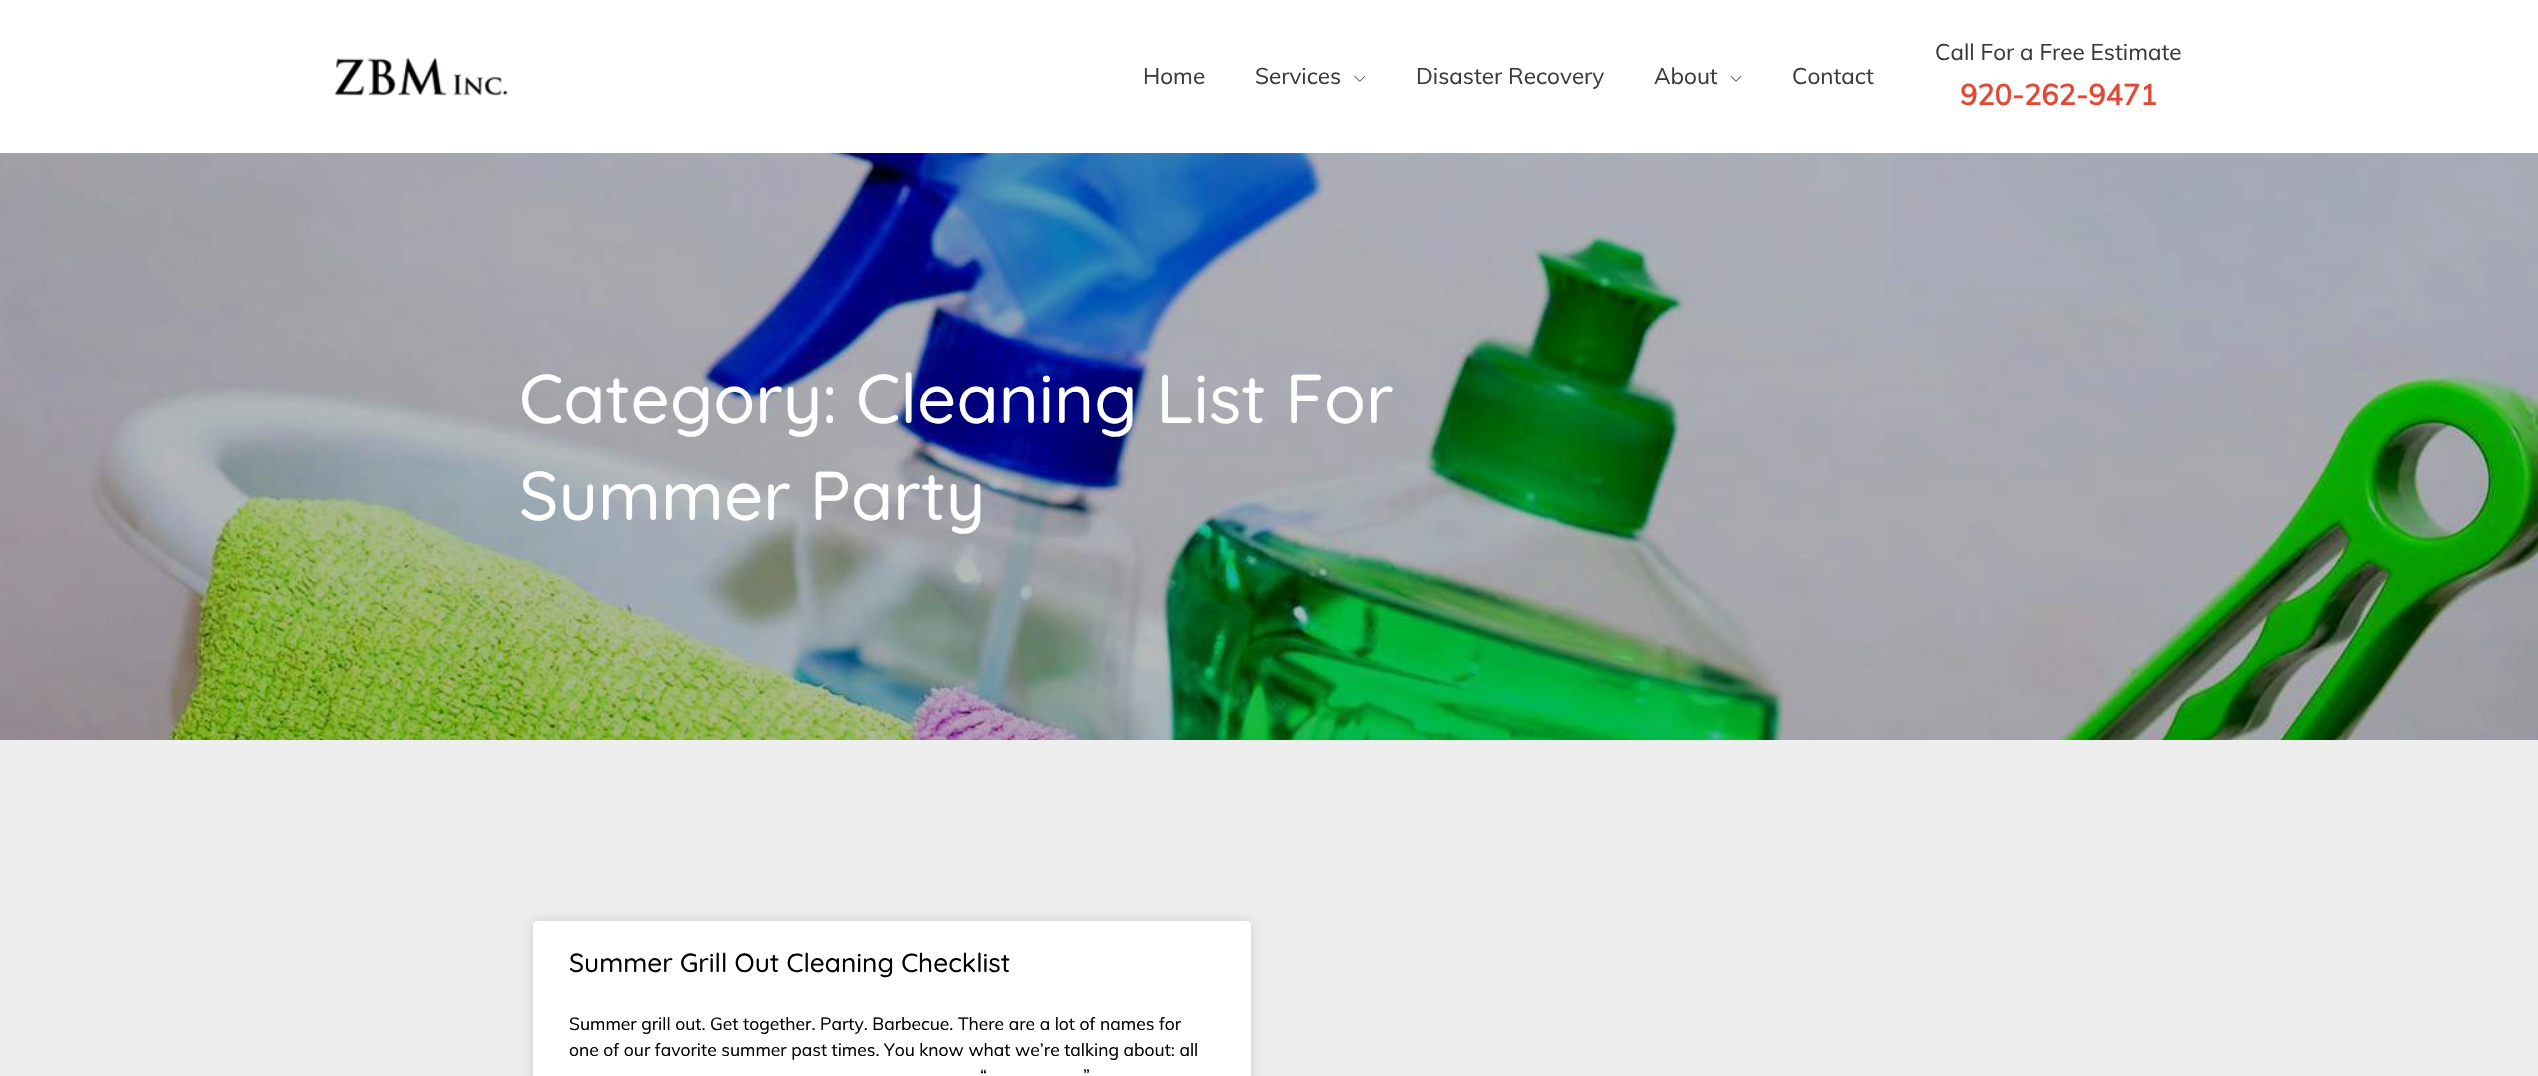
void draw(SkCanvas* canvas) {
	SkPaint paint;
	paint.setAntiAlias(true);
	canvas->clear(0xffffffff);
	canvas->drawImageRect(SkImages::DeferredFromEncodedData(SkData::MakeFromFileName("img1.png")), SkRect::MakeXYWH(334, 57, 174, 39), SkSamplingOptions());
	SkFont f1(fontMgr->matchFamilyStyle("Muli", SkFontStyle::Normal()), 22.5);
	f1.setSubpixel(true);
	paint.setColor(0xff3a3a3a);
	canvas->drawString("Home", 1143, 84, f1, paint);
	canvas->drawString("Services", 1255, 84, f1, paint);
	canvas->drawImageRect(SkImages::DeferredFromEncodedData(SkData::MakeFromFileName("img2.png")), SkRect::MakeXYWH(1354, 75, 12, 7), SkSamplingOptions());
	canvas->drawString("Disaster Recovery", 1416, 84, f1, paint);
	canvas->drawString("About", 1654, 84, f1, paint);
	canvas->drawImageRect(SkImages::DeferredFromEncodedData(SkData::MakeFromFileName("img3.png")), SkRect::MakeXYWH(1730, 75, 12, 7), SkSamplingOptions());
	canvas->drawString("Contact", 1792, 84, f1, paint);
	canvas->drawString("Call For a Free Estimate", 1935, 60, f1, paint);
	SkFont f2(fontMgr->matchFamilyStyle("Muli", SkFontStyle::Bold()), 28.75);
	f2.setSubpixel(true);
	paint.setColor(0xffe04838);
	canvas->drawString("920-262-9471", 1960, 105, f2, paint);
	canvas->drawImageRect(SkImages::DeferredFromEncodedData(SkData::MakeFromFileName("img4.png")), SkRect::MakeXYWH(0, 153, 2538, 587), SkSamplingOptions());
	SkFont f3(fontMgr->matchFamilyStyle("Quicksand", SkFontStyle(300, SkFontStyle::kNormal_Width, SkFontStyle::kUpright_Slant)), 68.75);
	f3.setSubpixel(true);
	paint.setColor(0xffffffff);
	canvas->drawString("Category: Cleaning List For", 519, 423, f3, paint);
	canvas->drawString("Summer Party", 519, 520, f3, paint);
	paint.setColor(0xffeeeeee);
	canvas->drawRect(SkRect::MakeXYWH(0, 740, 2538, 336), paint);
	paint.setColor(0x26000000);
	paint.setMaskFilter(SkMaskFilter::MakeBlur(kNormal_SkBlurStyle, 6));
	canvas->drawRoundRect(SkRect::MakeXYWH(533, 921, 718, 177), 4, 4, paint);
	paint.setMaskFilter(nullptr);
	paint.setColor(0xffffffff);
	canvas->drawRoundRect(SkRect::MakeXYWH(533, 921, 718, 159), 4, 4, paint);
	SkFont f4(fontMgr->matchFamilyStyle("Quicksand", SkFontStyle(300, SkFontStyle::kNormal_Width, SkFontStyle::kUpright_Slant)), 26.25);
	f4.setSubpixel(true);
	paint.setColor(0xff000000);
	canvas->drawString("Summer Grill Out Cleaning Checklist", 569, 972, f4, paint);
	SkFont f5(fontMgr->matchFamilyStyle("Muli", SkFontStyle::Normal()), 17.5);
	f5.setSubpixel(true);
	canvas->drawString("Summer grill out. Get together. Party. Barbecue. There are a lot of names for", 569, 1030, f5, paint);
	canvas->drawString("one of our favorite summer past times. You know what we’re talking about: all", 569, 1056, f5, paint);
	canvas->drawString("“", 980, 1082, f5, paint);
	canvas->drawString("”", 1083, 1082, f5, paint);
}
